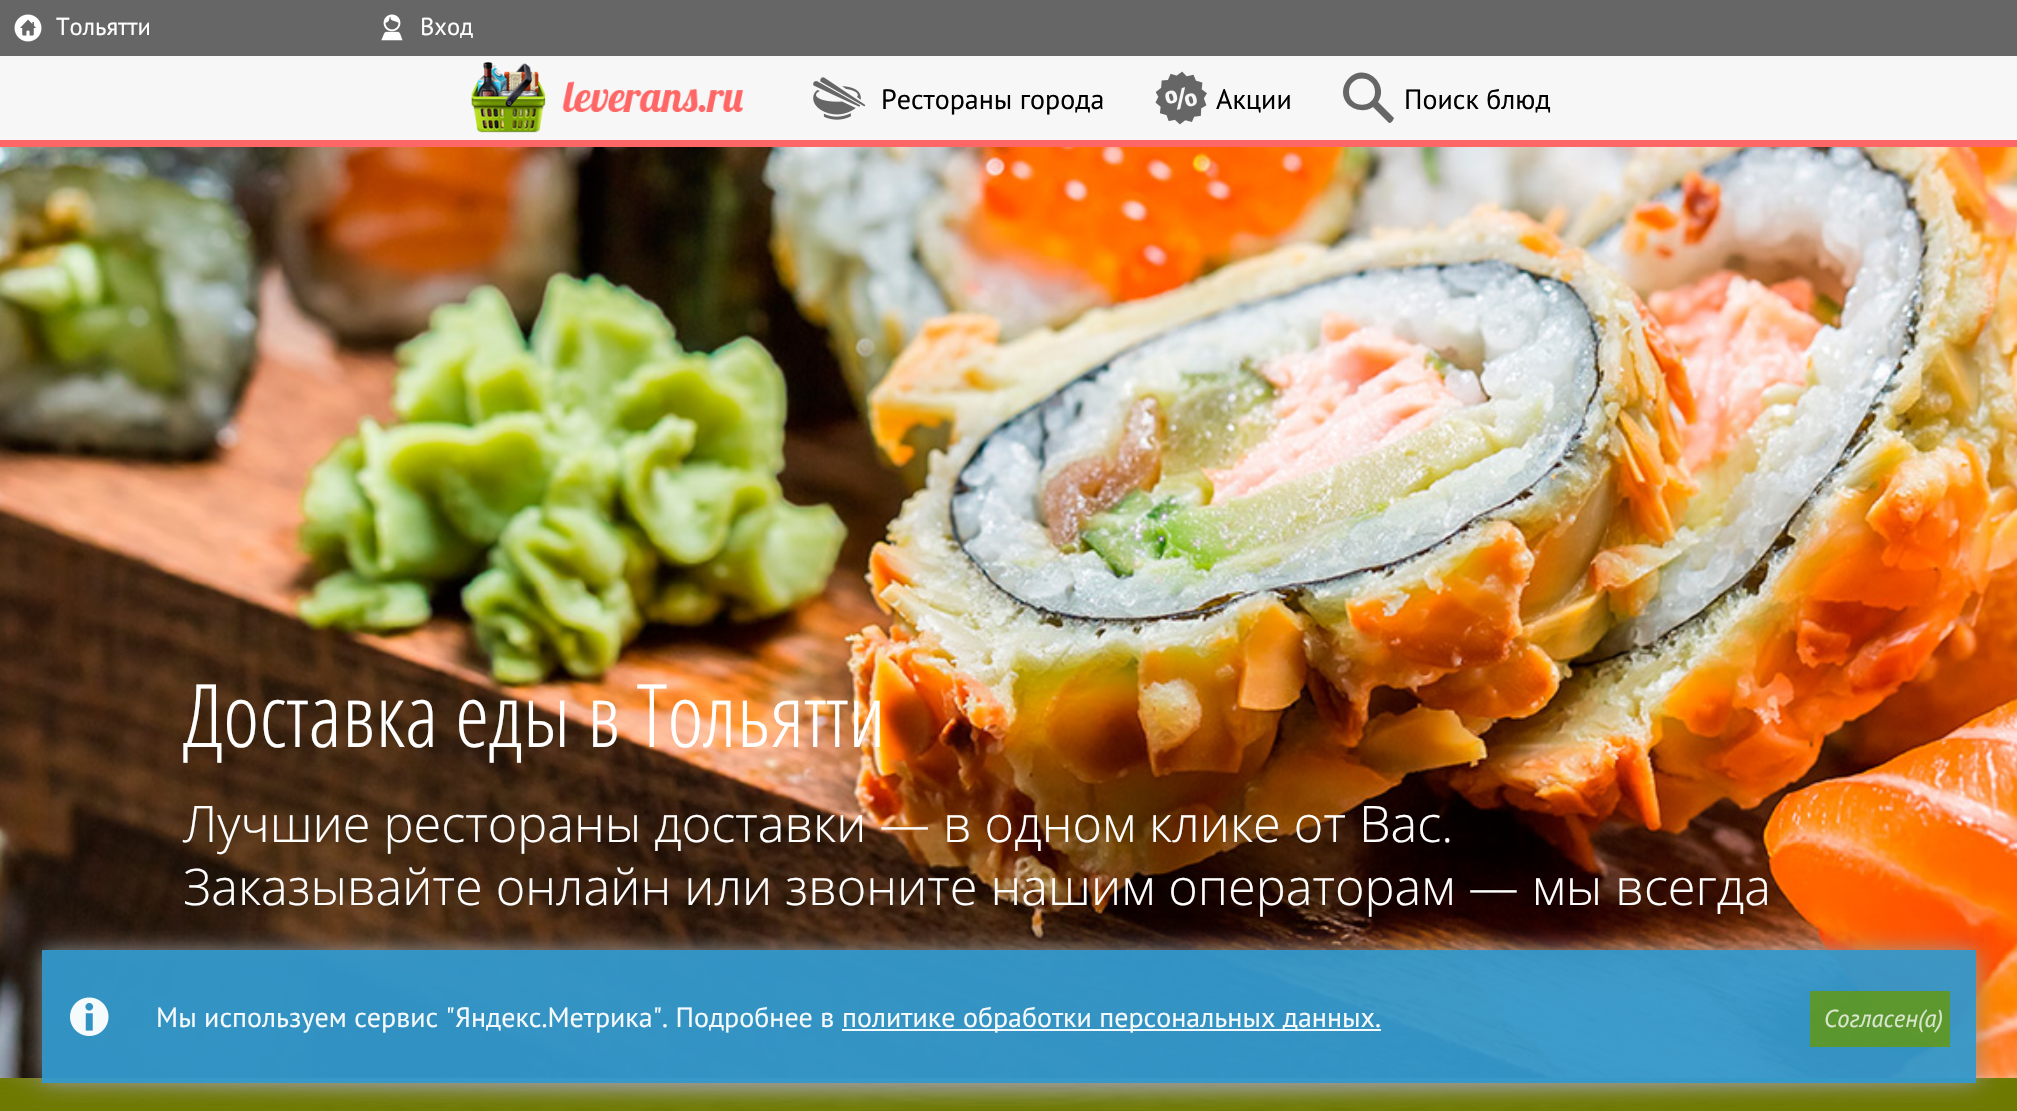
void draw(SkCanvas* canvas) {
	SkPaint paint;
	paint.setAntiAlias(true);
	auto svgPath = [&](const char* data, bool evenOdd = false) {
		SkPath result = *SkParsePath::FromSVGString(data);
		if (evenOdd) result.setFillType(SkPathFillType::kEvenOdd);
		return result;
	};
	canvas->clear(0xff6e7902);
	paint.setColor(0xff666666);
	canvas->drawRect(SkRect::MakeXYWH(0, 0, 2017, 56), paint);
	canvas->drawImageRect(SkImages::DeferredFromEncodedData(SkData::MakeFromFileName("img1.png")), SkRect::MakeXYWH(14, 14, 28, 28), SkSamplingOptions());
	SkFont f1(fontMgr->matchFamilyStyle("PT Sans", SkFontStyle::Normal()), 24.5);
	f1.setSubpixel(true);
	paint.setColor(0xffffffff);
	canvas->drawString("Тольятти", 56, 35, f1, paint);
	canvas->drawImageRect(SkImages::DeferredFromEncodedData(SkData::MakeFromFileName("img2.png")), SkRect::MakeXYWH(381, 14, 22, 27), SkSamplingOptions());
	canvas->drawString("Вxод", 420, 35, f1, paint);
	paint.setColor(0xfff7f7f7);
	canvas->drawRect(SkRect::MakeXYWH(0, 56, 2017, 84), paint);
	paint.setColor(0xffff6666);
	canvas->drawRect(SkRect::MakeXYWH(0, 140, 2017, 7), paint);
	canvas->drawImageRect(SkImages::DeferredFromEncodedData(SkData::MakeFromFileName("img3.png")), SkRect::MakeXYWH(471, 62, 272, 71), SkSamplingOptions());
	canvas->drawImageRect(SkImages::DeferredFromEncodedData(SkData::MakeFromFileName("img4.png")), SkRect::MakeXYWH(813, 77, 53, 43), SkSamplingOptions());
	SkFont f2(fontMgr->matchFamilyStyle("PT Sans", SkFontStyle::Normal()), 28);
	f2.setSubpixel(true);
	paint.setColor(0xff000000);
	canvas->drawString("Рестораны города", 881, 109, f2, paint);
	canvas->drawImageRect(SkImages::DeferredFromEncodedData(SkData::MakeFromFileName("img5.png")), SkRect::MakeXYWH(1155, 71, 52, 54), SkSamplingOptions());
	canvas->drawString("Акции", 1216, 109, f2, paint);
	paint.setColor(0xff666666);
	canvas->drawPath(svgPath("M1343 92C1343 107 1361 115 1373 107L1389 123C1391 123 1393 121 1394 118L1378 102C1390 84 1365 62 1349 78C1345 82 1343 87 1343 92ZM1349 92C1349 74 1375 74 1375 92C1375 109 1349 109 1349 92Z", true), paint);
	paint.setColor(0xff000000);
	canvas->drawString("Поиск блюд", 1404, 109, f2, paint);
	canvas->drawImageRect(SkImages::DeferredFromEncodedData(SkData::MakeFromFileName("img6.png")), SkRect::MakeXYWH(0, 1078, 1996, 33), SkSamplingOptions());
	canvas->drawImageRect(SkImages::DeferredFromEncodedData(SkData::MakeFromFileName("img7.png")), SkRect::MakeXYWH(0, 147, 2017, 931), SkSamplingOptions());
	SkFont f3(fontMgr->matchFamilyStyle("Open Sans Condensed", SkFontStyle(300, SkFontStyle::kNormal_Width, SkFontStyle::kUpright_Slant)), 87.5);
	f3.setSubpixel(true);
	paint.setColor(0xffffffff);
	canvas->drawString("Доставка еды в Тольятти", 183, 747, f3, paint);
	SkFont f4(fontMgr->matchFamilyStyle("Open Sans", SkFontStyle(300, SkFontStyle::kNormal_Width, SkFontStyle::kUpright_Slant)), 50.4);
	f4.setSubpixel(true);
	canvas->drawString("Лучшие рестораны доставки — в одном клике от Вас.", 183, 842, f4, paint);
	canvas->drawString("Заказывайте онлайн или звоните нашим операторам — мы всегда", 183, 905, f4, paint);
	canvas->save();
	canvas->clipPath(svgPath("M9 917H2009V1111H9ZM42 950H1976V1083H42Z", true), true);
	paint.setColor(0xf2999999);
	paint.setMaskFilter(SkMaskFilter::MakeBlur(kNormal_SkBlurStyle, 10.5));
	canvas->drawRect(SkRect::MakeXYWH(42, 950, 1934, 133), paint);
	paint.setMaskFilter(nullptr);
	canvas->restore();
	paint.setColor(0xf23399cc);
	canvas->drawRect(SkRect::MakeXYWH(42, 950, 1934, 133), paint);
	canvas->drawImageRect(SkImages::DeferredFromEncodedData(SkData::MakeFromFileName("img8.png")), SkRect::MakeXYWH(70, 997, 39, 39), SkSamplingOptions());
	paint.setColor(0xfff5fafc);
	canvas->drawString("Мы используем сервис \"Яндекс.Метрика\". Подробнее в", 156, 1027, f2, paint);
	paint.setColor(0xf2ffffff);
	canvas->drawRect(SkRect::MakeXYWH(842, 1029, 539, 2), paint);
	paint.setColor(0xfff5fafc);
	canvas->drawString("политике обработки персональных данных.", 842, 1027, f2, paint);
	paint.setColor(0xc2669900);
	canvas->drawRect(SkRect::MakeXYWH(1810, 991, 140, 56), paint);
	SkFont f5(fontMgr->matchFamilyStyle("PT Sans", SkFontStyle::Italic()), 24.5);
	f5.setSubpixel(true);
	paint.setColor(0xffd8e6cd);
	canvas->drawString("Согласен(а)", 1824, 1027, f5, paint);
}
